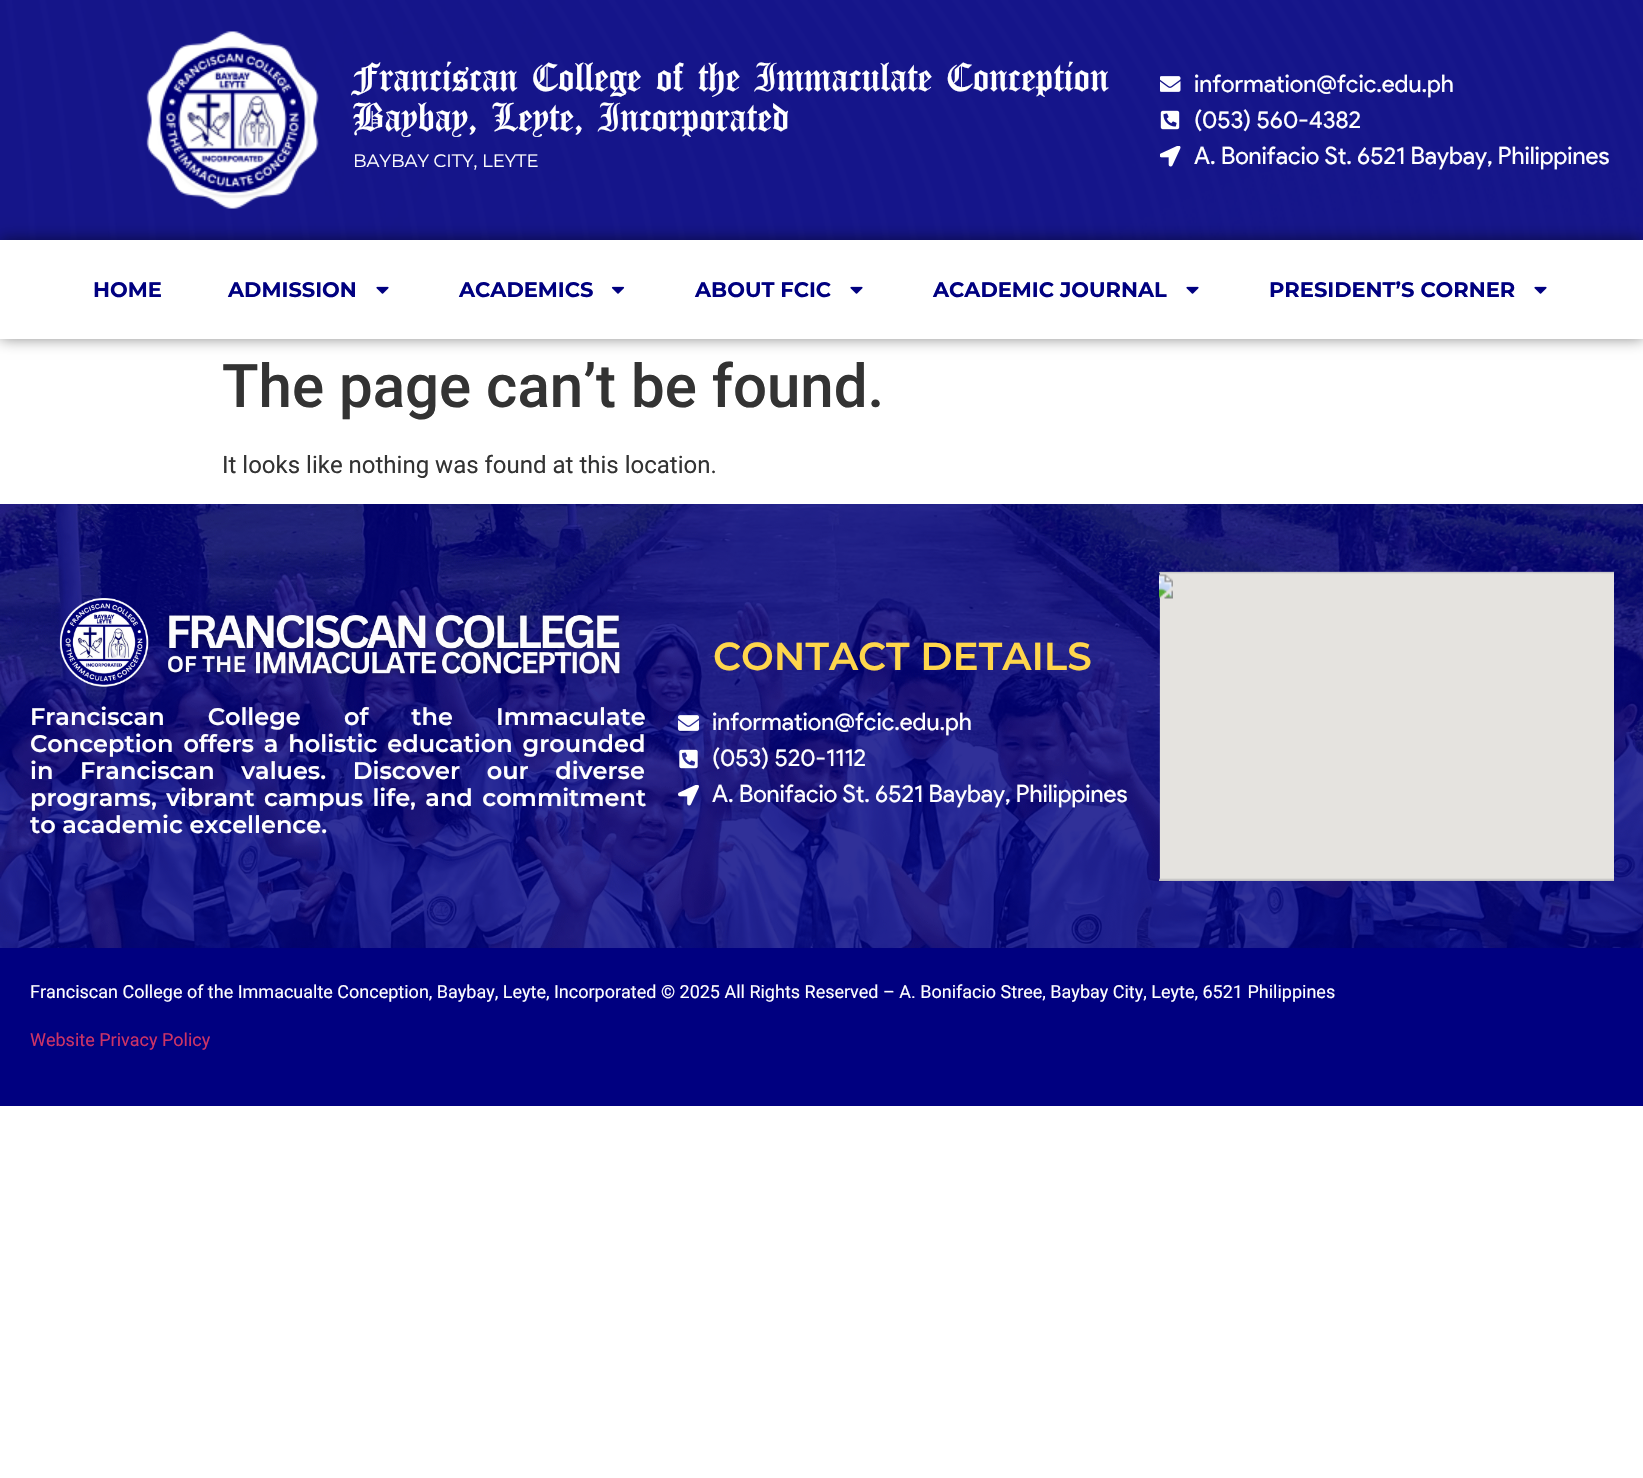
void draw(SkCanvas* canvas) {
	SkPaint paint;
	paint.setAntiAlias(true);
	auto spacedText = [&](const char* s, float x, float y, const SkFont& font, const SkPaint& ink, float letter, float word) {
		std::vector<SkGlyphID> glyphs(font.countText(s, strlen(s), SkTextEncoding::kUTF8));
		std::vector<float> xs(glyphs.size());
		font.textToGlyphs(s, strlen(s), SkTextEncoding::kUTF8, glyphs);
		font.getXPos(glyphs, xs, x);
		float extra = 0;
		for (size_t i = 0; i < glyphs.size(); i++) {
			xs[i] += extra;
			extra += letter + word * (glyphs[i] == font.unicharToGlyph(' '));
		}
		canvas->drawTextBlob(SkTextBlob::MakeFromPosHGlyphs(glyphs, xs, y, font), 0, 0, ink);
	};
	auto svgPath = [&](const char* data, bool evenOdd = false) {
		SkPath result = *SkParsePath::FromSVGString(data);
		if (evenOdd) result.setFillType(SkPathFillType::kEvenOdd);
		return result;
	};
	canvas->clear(0xffffffff);
	canvas->drawImageRect(SkImages::DeferredFromEncodedData(SkData::MakeFromFileName("img1.png")), SkRect::MakeXYWH(0, 0, 1643, 240), SkSamplingOptions());
	canvas->drawImageRect(SkImages::DeferredFromEncodedData(SkData::MakeFromFileName("img2.png")), SkRect::MakeXYWH(146, 31, 173, 178), SkSamplingOptions());
	SkFont f1(fontMgr->matchFamilyStyle("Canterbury", SkFontStyle::Normal()), 42);
	f1.setSubpixel(true);
	paint.setColor(0xffffffff);
	canvas->drawString("Franciscan College of the Immaculate Conception", 353, 91, f1, paint);
	canvas->drawString("Baybay, Leyte, Incorporated", 353, 131, f1, paint);
	SkFont f2(fontMgr->matchFamilyStyle("Montserrat", SkFontStyle::Normal()), 18);
	f2.setSubpixel(true);
	canvas->drawString("BAYBAY CITY, LEYTE", 353, 167, f2, paint);
	canvas->drawImageRect(SkImages::DeferredFromEncodedData(SkData::MakeFromFileName("img3.png")), SkRect::MakeXYWH(1160, 76, 21, 16), SkSamplingOptions());
	SkFont f3(fontMgr->matchFamilyStyle("Product Sans", SkFontStyle::Normal()), 24);
	f3.setSubpixel(true);
	canvas->drawString("information@fcic.edu.ph", 1194, 92, f3, paint);
	canvas->drawImageRect(SkImages::DeferredFromEncodedData(SkData::MakeFromFileName("img4.png")), SkRect::MakeXYWH(1160, 110, 20, 20), SkSamplingOptions());
	canvas->drawString("(053) 560-4382", 1194, 128, f3, paint);
	canvas->drawImageRect(SkImages::DeferredFromEncodedData(SkData::MakeFromFileName("img5.png")), SkRect::MakeXYWH(1160, 146, 21, 21), SkSamplingOptions());
	canvas->drawString("A. Bonifacio St. 6521 Baybay, Philippines", 1194, 164, f3, paint);
	canvas->save();
	canvas->clipPath(svgPath("M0 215H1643V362H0ZM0 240H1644V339H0Z", true), true);
	paint.setColor(0x80000000);
	paint.setMaskFilter(SkMaskFilter::MakeBlur(kNormal_SkBlurStyle, 7.5));
	canvas->drawRect(SkRect::MakeXYWH(0, 239, 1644, 99), paint);
	paint.setMaskFilter(nullptr);
	canvas->restore();
	SkFont f4(fontMgr->matchFamilyStyle("Montserrat", SkFontStyle::Bold()), 21);
	f4.setSubpixel(true);
	paint.setColor(0xff000080);
	canvas->drawString("HOME", 93, 297, f4, paint);
	canvas->drawString("ADMISSION", 228, 297, f4, paint);
	canvas->drawImageRect(SkImages::DeferredFromEncodedData(SkData::MakeFromFileName("img6.png")), SkRect::MakeXYWH(376, 286, 13, 8), SkSamplingOptions());
	canvas->drawString("ACADEMICS", 459, 297, f4, paint);
	canvas->drawImageRect(SkImages::DeferredFromEncodedData(SkData::MakeFromFileName("img7.png")), SkRect::MakeXYWH(611, 286, 14, 8), SkSamplingOptions());
	canvas->drawString("ABOUT FCIC", 695, 297, f4, paint);
	canvas->drawImageRect(SkImages::DeferredFromEncodedData(SkData::MakeFromFileName("img6.png")), SkRect::MakeXYWH(850, 286, 13, 8), SkSamplingOptions());
	canvas->drawString("ACADEMIC JOURNAL", 933, 297, f4, paint);
	canvas->drawImageRect(SkImages::DeferredFromEncodedData(SkData::MakeFromFileName("img6.png")), SkRect::MakeXYWH(1186, 286, 13, 8), SkSamplingOptions());
	canvas->drawString("PRESIDENT’S CORNER", 1269, 297, f4, paint);
	canvas->drawImageRect(SkImages::DeferredFromEncodedData(SkData::MakeFromFileName("img6.png")), SkRect::MakeXYWH(1534, 286, 13, 8), SkSamplingOptions());
	SkFont f5(fontMgr->matchFamilyStyle("Roboto", SkFontStyle(500, SkFontStyle::kNormal_Width, SkFontStyle::kUpright_Slant)), 60);
	f5.setSubpixel(true);
	paint.setColor(0xff333333);
	canvas->drawString("The page can’t be found.", 222, 407, f5, paint);
	SkFont f6(fontMgr->matchFamilyStyle("Roboto", SkFontStyle::Normal()), 24);
	f6.setSubpixel(true);
	canvas->drawString("It looks like nothing was found at this location.", 222, 473, f6, paint);
	canvas->drawImageRect(SkImages::DeferredFromEncodedData(SkData::MakeFromFileName("img8.png")), SkRect::MakeXYWH(0, 504, 1643, 444), SkSamplingOptions());
	canvas->drawImageRect(SkImages::DeferredFromEncodedData(SkData::MakeFromFileName("img9.png")), SkRect::MakeXYWH(59, 598, 563, 90), SkSamplingOptions());
	SkFont f7(fontMgr->matchFamilyStyle("Montserrat", SkFontStyle(600, SkFontStyle::kNormal_Width, SkFontStyle::kUpright_Slant)), 24);
	f7.setSubpixel(true);
	paint.setColor(0xffffffff);
	spacedText("Franciscan College of the Immaculate", 30, 725, f7, paint, 0, 36.5);
	spacedText("Conception offers a holistic education grounded", 30, 752, f7, paint, 0, 3.25);
	spacedText("in Franciscan values. Discover our diverse", 30, 779, f7, paint, 0, 20);
	spacedText("programs, vibrant campus life, and commitment", 30, 806, f7, paint, 0, 2.75);
	canvas->drawString("to academic excellence.", 30, 833, f7, paint);
	SkFont f8(fontMgr->matchFamilyStyle("Montserrat", SkFontStyle(600, SkFontStyle::kNormal_Width, SkFontStyle::kUpright_Slant)), 39);
	f8.setSubpixel(true);
	paint.setColor(0xffffd64c);
	canvas->drawString("CONTACT DETAILS", 713, 670, f8, paint);
	canvas->drawImageRect(SkImages::DeferredFromEncodedData(SkData::MakeFromFileName("img10.png")), SkRect::MakeXYWH(678, 715, 21, 16), SkSamplingOptions());
	paint.setColor(0xffffffff);
	canvas->drawString("information@fcic.edu.ph", 712, 730, f3, paint);
	canvas->drawImageRect(SkImages::DeferredFromEncodedData(SkData::MakeFromFileName("img11.png")), SkRect::MakeXYWH(679, 749, 19, 20), SkSamplingOptions());
	canvas->drawString("(053) 520-1112", 712, 766, f3, paint);
	canvas->drawImageRect(SkImages::DeferredFromEncodedData(SkData::MakeFromFileName("img12.png")), SkRect::MakeXYWH(678, 785, 21, 21), SkSamplingOptions());
	canvas->drawString("A. Bonifacio St. 6521 Baybay, Philippines", 712, 802, f3, paint);
	canvas->drawImageRect(SkImages::DeferredFromEncodedData(SkData::MakeFromFileName("img13.png")), SkRect::MakeXYWH(1159, 571, 455, 310), SkSamplingOptions());
	paint.setColor(0xff000080);
	canvas->drawRect(SkRect::MakeXYWH(0, 948, 1643, 158), paint);
	SkFont f9(fontMgr->matchFamilyStyle("Roboto", SkFontStyle::Normal()), 18);
	f9.setSubpixel(true);
	paint.setColor(0xffffffff);
	canvas->drawString("Franciscan College of the Immacualte Conception, Baybay, Leyte, Incorporated © 2025 All Rights Reserved – A. Bonifacio Stree, Baybay City, Leyte, 6521 Philippines", 30, 998, f9, paint);
	paint.setColor(0xffcc3366);
	canvas->drawString("Website Privacy Policy", 30, 1046, f9, paint);
}
